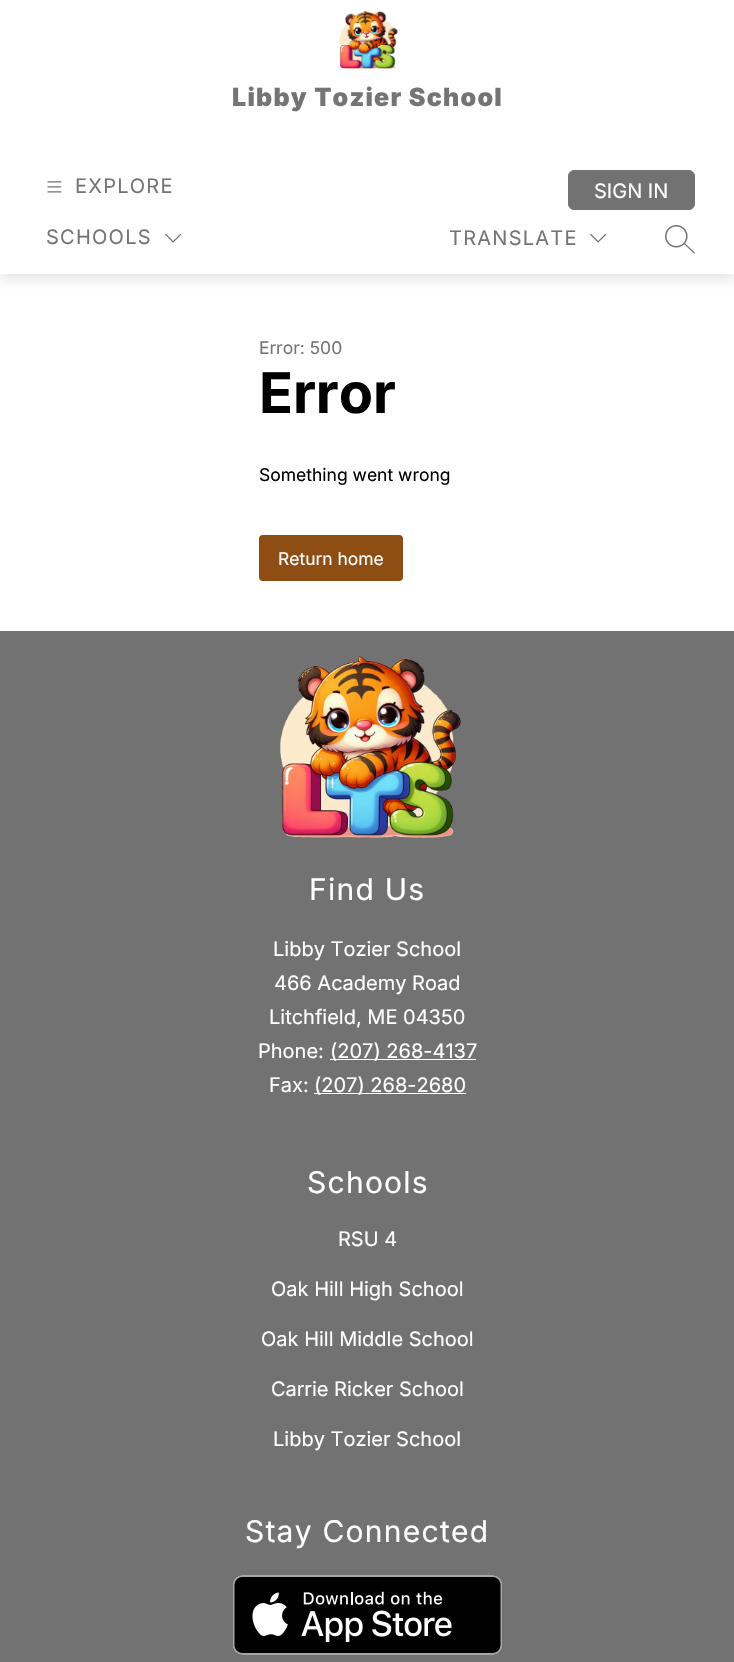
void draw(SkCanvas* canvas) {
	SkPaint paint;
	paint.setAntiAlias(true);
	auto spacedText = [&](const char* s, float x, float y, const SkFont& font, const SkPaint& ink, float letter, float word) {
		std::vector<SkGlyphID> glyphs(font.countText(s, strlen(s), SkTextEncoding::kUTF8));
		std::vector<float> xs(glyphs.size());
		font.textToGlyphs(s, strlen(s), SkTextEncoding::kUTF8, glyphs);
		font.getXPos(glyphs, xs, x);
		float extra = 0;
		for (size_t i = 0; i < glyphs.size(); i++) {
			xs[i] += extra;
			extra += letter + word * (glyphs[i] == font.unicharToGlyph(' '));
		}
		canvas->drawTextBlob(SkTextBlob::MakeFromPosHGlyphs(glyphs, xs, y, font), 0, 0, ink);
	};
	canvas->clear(0xffffffff);
	paint.setColor(0x1a000000);
	paint.setMaskFilter(SkMaskFilter::MakeBlur(kNormal_SkBlurStyle, 6));
	canvas->drawRect(SkRect::MakeXYWH(0, 5, 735, 274), paint);
	paint.setMaskFilter(nullptr);
	paint.setColor(0xffffffff);
	canvas->drawRect(SkRect::MakeXYWH(0, 0, 734, 274), paint);
	canvas->drawImageRect(SkImages::DeferredFromEncodedData(SkData::MakeFromFileName("img1.png")), SkRect::MakeXYWH(339, 10, 59, 60), SkSamplingOptions());
	SkFont f1(fontMgr->matchFamilyStyle("Inter", SkFontStyle(900, SkFontStyle::kNormal_Width, SkFontStyle::kUpright_Slant)), 25);
	f1.setSubpixel(true);
	paint.setColor(0xff747474);
	spacedText("Libby Tozier School", 232, 106, f1, paint, 1.25, 0);
	canvas->drawImageRect(SkImages::DeferredFromEncodedData(SkData::MakeFromFileName("img2.png")), SkRect::MakeXYWH(47, 181, 15, 12), SkSamplingOptions());
	SkFont f2(fontMgr->matchFamilyStyle("Inter", SkFontStyle::Normal()), 20);
	f2.setSubpixel(true);
	spacedText("EXPLORE", 75, 193, f2, paint, 1.25, 0);
	spacedText("SCHOOLS", 46, 244, f2, paint, 1.25, 0);
	canvas->drawImageRect(SkImages::DeferredFromEncodedData(SkData::MakeFromFileName("img3.png")), SkRect::MakeXYWH(165, 233, 17, 10), SkSamplingOptions());
	paint.setColor(0xff727272);
	canvas->drawRoundRect(SkRect::MakeXYWH(568.5, 170.5, 126, 39), 5.5, 5.5, paint);
	paint.setStroke(true);
	paint.setStrokeWidth(1);
	canvas->drawRoundRect(SkRect::MakeXYWH(568.5, 170.5, 126, 39), 5.5, 5.5, paint);
	paint.setStroke(false);
	paint.setColor(0xffffffff);
	canvas->drawString("SIGN IN", 594, 198, f2, paint);
	paint.setColor(0xff747474);
	spacedText("TRANSLATE", 449, 245, f2, paint, 1.25, 0);
	canvas->drawImageRect(SkImages::DeferredFromEncodedData(SkData::MakeFromFileName("img3.png")), SkRect::MakeXYWH(590, 233, 17, 10), SkSamplingOptions());
	canvas->drawImageRect(SkImages::DeferredFromEncodedData(SkData::MakeFromFileName("img4.png")), SkRect::MakeXYWH(665, 225, 30, 29), SkSamplingOptions());
	SkFont f3(fontMgr->matchFamilyStyle("Inter", SkFontStyle::Normal()), 17.5);
	f3.setSubpixel(true);
	canvas->drawString("Error: 500", 259, 354, f3, paint);
	SkFont f4(fontMgr->matchFamilyStyle("Inter", SkFontStyle::Bold()), 56);
	f4.setSubpixel(true);
	paint.setColor(0xff000000);
	canvas->drawString("Error", 259, 413, f4, paint);
	canvas->drawString("Something went wrong", 259, 481, f3, paint);
	paint.setColor(0xff8e4e13);
	canvas->drawRoundRect(SkRect::MakeXYWH(259, 535, 144, 46), 4, 4, paint);
	paint.setColor(0xffffffff);
	canvas->drawString("Return home", 278, 565, f3, paint);
	paint.setColor(0xff727272);
	canvas->drawRect(SkRect::MakeXYWH(0, 631, 734, 1031), paint);
	canvas->drawImageRect(SkImages::DeferredFromEncodedData(SkData::MakeFromFileName("img5.png")), SkRect::MakeXYWH(280, 655, 181, 183), SkSamplingOptions());
	SkFont f5(fontMgr->matchFamilyStyle("Inter", SkFontStyle::Normal()), 30);
	f5.setSubpixel(true);
	paint.setColor(0xffffffff);
	spacedText("Find Us", 309, 900, f5, paint, 1.25, 0);
	canvas->drawString("Libby Tozier School", 273, 956, f2, paint);
	canvas->drawString("466 Academy Road", 274, 990, f2, paint);
	canvas->drawString("Litchfield, ME 04350", 269, 1024, f2, paint);
	canvas->drawString("Phone:", 258, 1058, f2, paint);
	canvas->drawRect(SkRect::MakeXYWH(330, 1059, 146, 1), paint);
	canvas->drawString("(207) 268-4137", 330, 1058, f2, paint);
	canvas->drawString("Fax:", 269, 1092, f2, paint);
	canvas->drawRect(SkRect::MakeXYWH(314, 1093, 152, 1), paint);
	canvas->drawString("(207) 268-2680", 314, 1092, f2, paint);
	spacedText("Schools", 307, 1193, f5, paint, 1.25, 0);
	canvas->drawString("RSU 4", 338, 1246, f2, paint);
	canvas->drawString("Oak Hill High School", 271, 1296, f2, paint);
	canvas->drawString("Oak Hill Middle School", 261, 1346, f2, paint);
	canvas->drawString("Carrie Ricker School", 271, 1396, f2, paint);
	canvas->drawString("Libby Tozier School", 273, 1446, f2, paint);
	spacedText("Stay Connected", 245, 1542, f5, paint, 1.25, 0);
	canvas->drawImageRect(SkImages::DeferredFromEncodedData(SkData::MakeFromFileName("img6.png")), SkRect::MakeXYWH(233, 1575, 270, 80), SkSamplingOptions());
}
